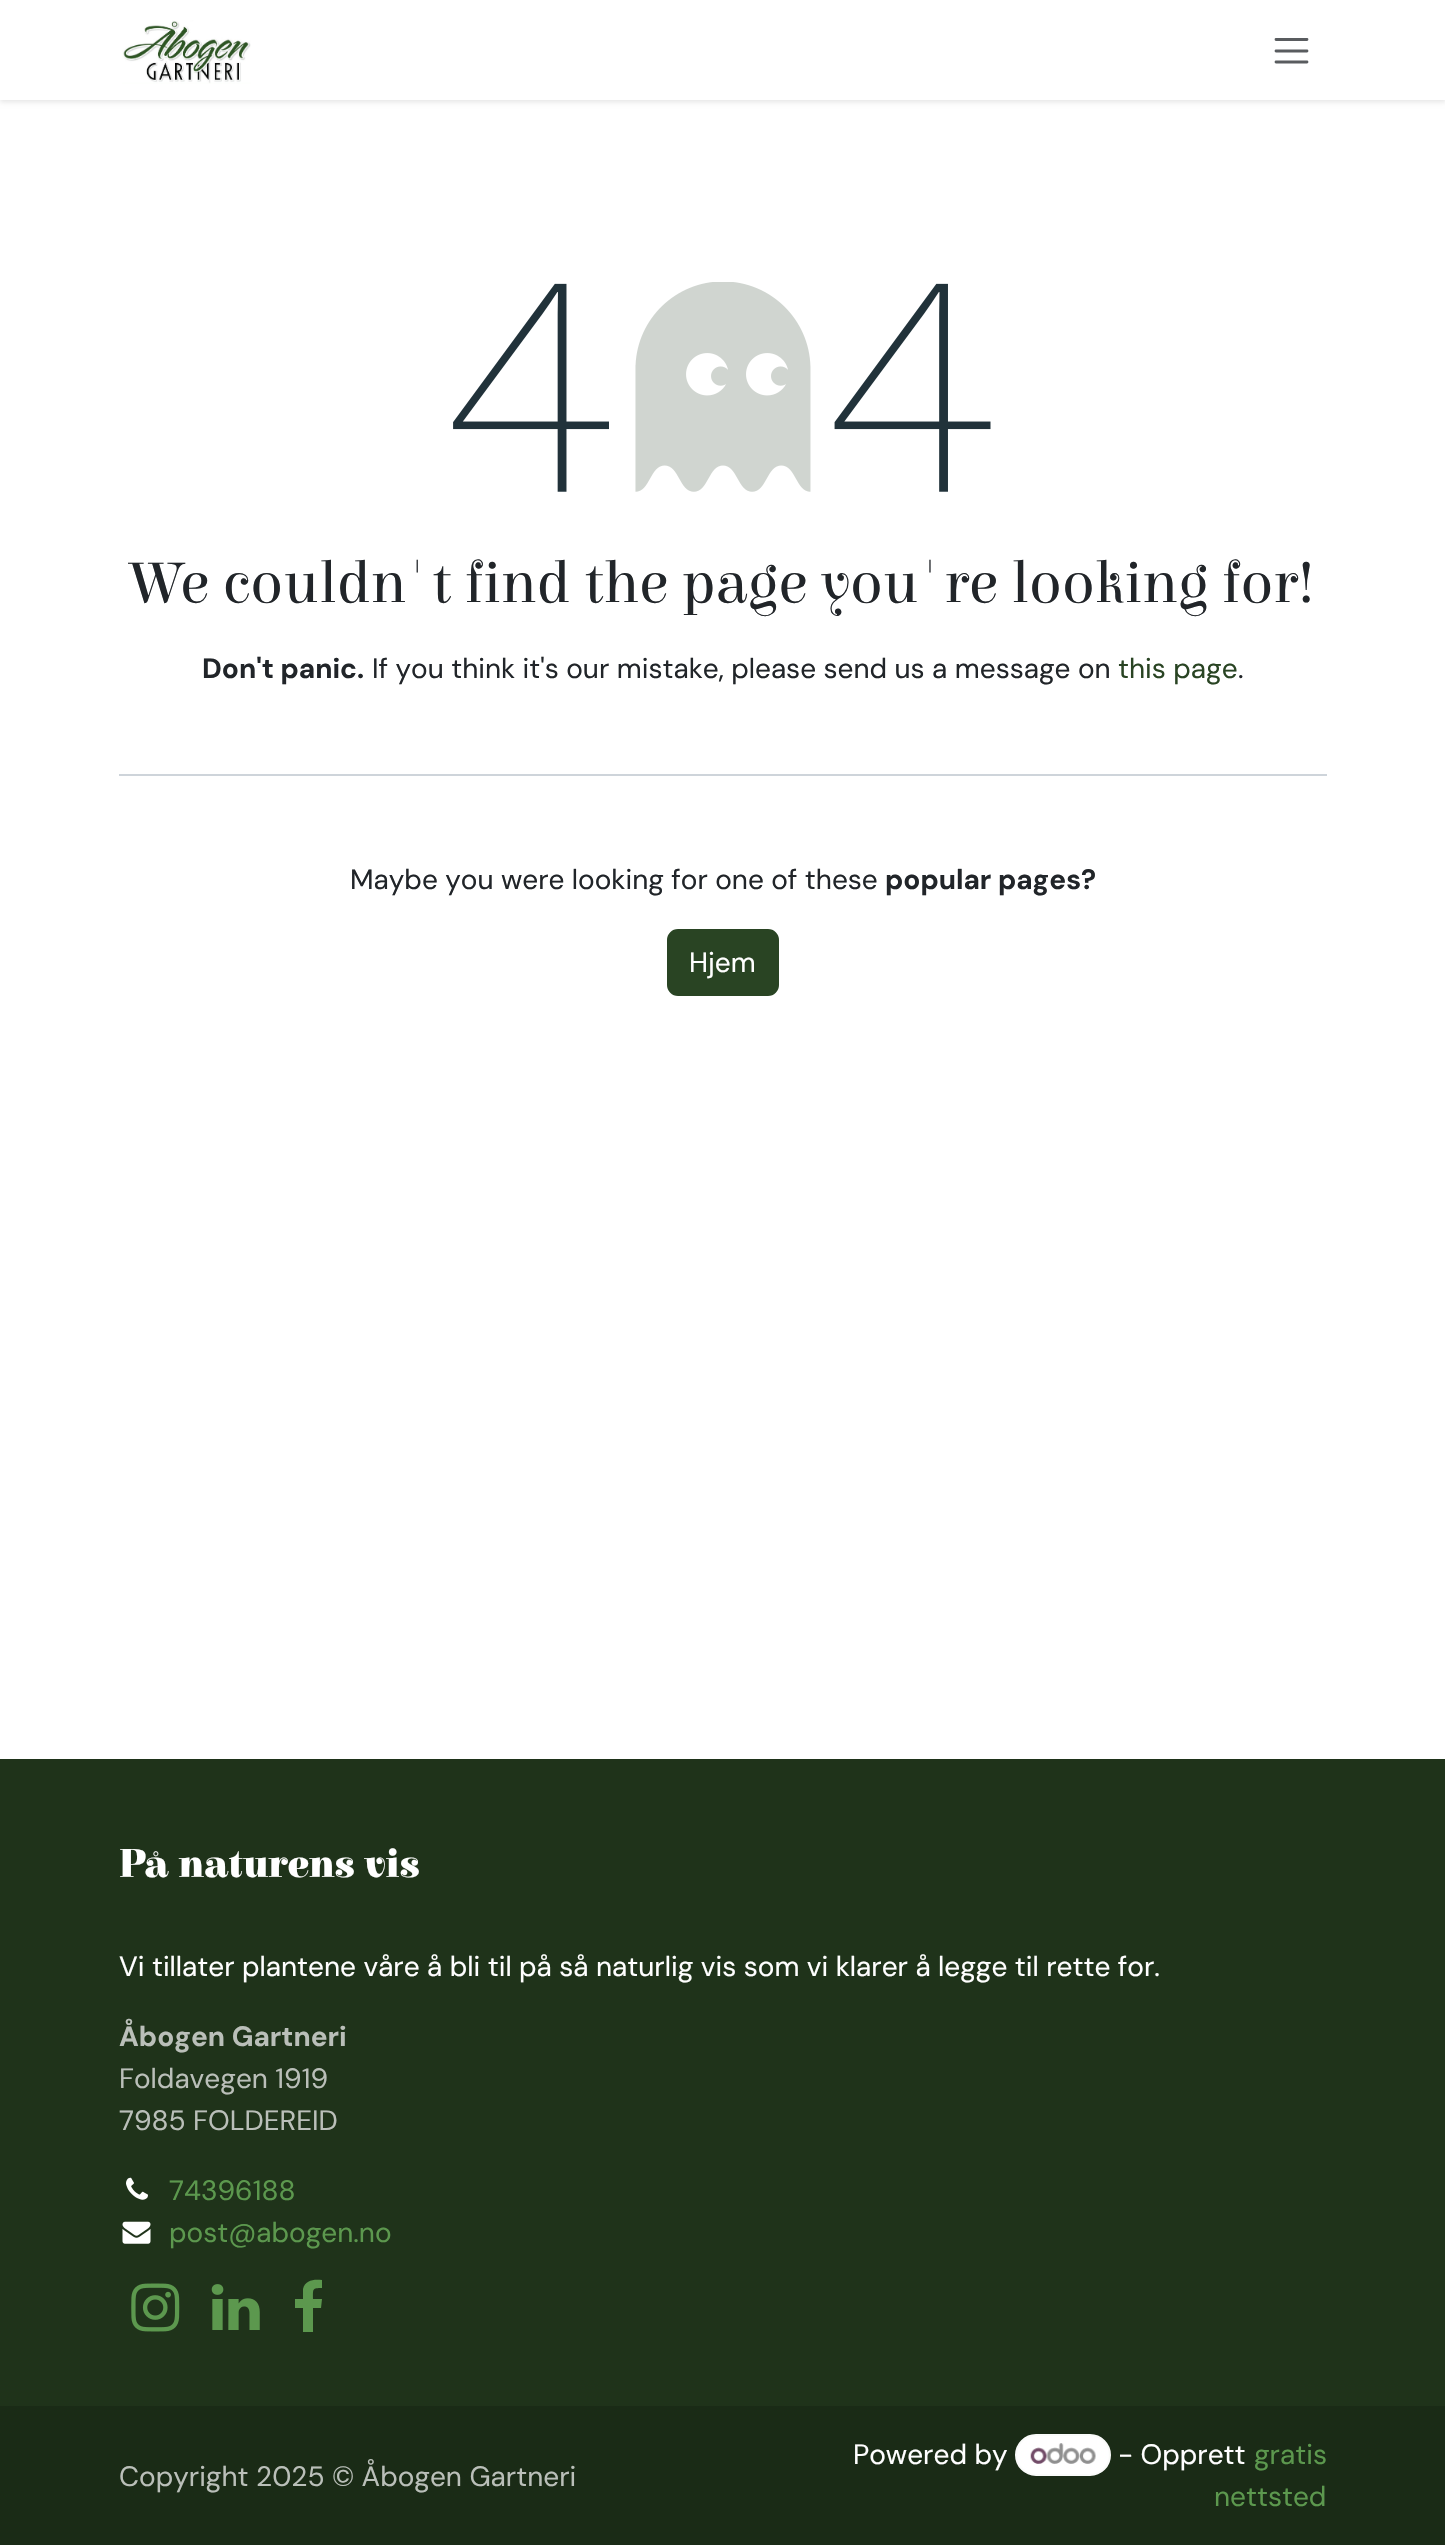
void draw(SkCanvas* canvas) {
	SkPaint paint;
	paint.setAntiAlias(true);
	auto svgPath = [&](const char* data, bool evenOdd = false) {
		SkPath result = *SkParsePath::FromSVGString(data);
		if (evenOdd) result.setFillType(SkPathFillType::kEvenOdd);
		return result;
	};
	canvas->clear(0xffffffff);
	paint.setColor(0x1a000000);
	paint.setMaskFilter(SkMaskFilter::MakeBlur(kNormal_SkBlurStyle, 2.5));
	canvas->drawRect(SkRect::MakeXYWH(0, 2, 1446, 100), paint);
	paint.setMaskFilter(nullptr);
	paint.setColor(0xffffffff);
	canvas->drawRect(SkRect::MakeXYWH(0, 0, 1445, 100), paint);
	canvas->drawImageRect(SkImages::DeferredFromEncodedData(SkData::MakeFromFileName("img1.png")), SkRect::MakeXYWH(122, 20, 129, 64), SkSamplingOptions());
	paint.setStroke(true);
	paint.setStrokeWidth(2.8);
	paint.setStrokeCap(SkPaint::kRound_Cap);
	paint.setColor(0xff595c5f);
	canvas->drawPath(svgPath("M1276 39.5H1307M1276 51H1307M1276 62H1307"), paint);
	canvas->drawImageRect(SkImages::DeferredFromEncodedData(SkData::MakeFromFileName("img2.png")), SkRect::MakeXYWH(453, 282, 538, 210), SkSamplingOptions());
	SkFont f1(fontMgr->matchFamilyStyle("Elsie", SkFontStyle::Normal()), 60.2);
	f1.setSubpixel(true);
	paint.setStroke(false);
	paint.setColor(0xff212529);
	canvas->drawString("We couldn't find the page you're looking for!", 131, 602, f1, paint);
	SkFont f2(fontMgr->matchFamilyStyle("DM Sans", SkFontStyle::Bold()), 28);
	f2.setSubpixel(true);
	canvas->drawString("Don't panic.", 202, 678, f2, paint);
	SkFont f3(fontMgr->matchFamilyStyle("DM Sans", SkFontStyle::Normal()), 28);
	f3.setSubpixel(true);
	canvas->drawString("If you think it's our mistake, please send us a message on", 372, 678, f3, paint);
	paint.setColor(0xff294423);
	canvas->drawString("this page", 1118, 678, f3, paint);
	paint.setColor(0xff212529);
	canvas->drawString(".", 1238, 678, f3, paint);
	paint.setColor(0xffced4da);
	canvas->drawRect(SkRect::MakeXYWH(119, 774, 1208, 2), paint);
	paint.setColor(0xff212529);
	canvas->drawString("Maybe you were looking for one of these", 350, 889, f3, paint);
	canvas->drawString("popular pages?", 885, 889, f2, paint);
	paint.setColor(0xff294423);
	canvas->drawRoundRect(SkRect::MakeXYWH(668, 930, 110, 65), 10, 10, paint);
	paint.setStroke(true);
	paint.setStrokeWidth(2);
	paint.setStrokeCap(SkPaint::kButt_Cap);
	canvas->drawRoundRect(SkRect::MakeXYWH(668, 930, 110, 65), 10, 10, paint);
	paint.setStroke(false);
	paint.setColor(0xffffffff);
	canvas->drawString("Hjem", 689, 972, f3, paint);
	paint.setColor(0xff1f331a);
	canvas->drawRect(SkRect::MakeXYWH(0, 1759, 1445, 647), paint);
	SkFont f4(fontMgr->matchFamilyStyle("Elsie", SkFontStyle(900, SkFontStyle::kNormal_Width, SkFontStyle::kUpright_Slant)), 40);
	f4.setSubpixel(true);
	paint.setColor(0xffffffff);
	canvas->drawString("På naturens vis", 119, 1877, f4, paint);
	canvas->drawString("Vi tillater plantene våre å bli til på så naturlig vis som vi klarer å legge til rette for.", 119, 1976, f3, paint);
	paint.setColor(0xffbabfb9);
	canvas->drawString("Åbogen Gartneri", 119, 2046, f2, paint);
	canvas->drawString("Foldavegen 1919", 119, 2088, f3, paint);
	canvas->drawString("7985 FOLDEREID", 119, 2130, f3, paint);
	canvas->drawImageRect(SkImages::DeferredFromEncodedData(SkData::MakeFromFileName("img3.png")), SkRect::MakeXYWH(126, 2177, 22, 23), SkSamplingOptions());
	paint.setColor(0xff5c984e);
	canvas->drawString("74396188", 169, 2200, f3, paint);
	canvas->drawImageRect(SkImages::DeferredFromEncodedData(SkData::MakeFromFileName("img4.png")), SkRect::MakeXYWH(122, 2221, 29, 23), SkSamplingOptions());
	canvas->drawString("post@abogen.no", 169, 2242, f3, paint);
	canvas->drawImageRect(SkImages::DeferredFromEncodedData(SkData::MakeFromFileName("img5.png")), SkRect::MakeXYWH(131, 2283, 49, 49), SkSamplingOptions());
	canvas->drawImageRect(SkImages::DeferredFromEncodedData(SkData::MakeFromFileName("img6.png")), SkRect::MakeXYWH(211, 2284, 49, 46), SkSamplingOptions());
	canvas->drawPath(svgPath("M322 2280V2288C312 2288 313 2289 313 2299H322L321 2308H313V2332H303V2308H295V2299H303V2289C305 2280 314 2279 322 2280Z"), paint);
	paint.setColor(0xff1a2b16);
	canvas->drawRect(SkRect::MakeXYWH(0, 2406, 1445, 139), paint);
	paint.setColor(0xffbabfb9);
	canvas->drawString("Copyright 2025 © Åbogen Gartneri", 119, 2486, f3, paint);
	paint.setColor(0xffffffff);
	canvas->drawString("Powered by", 853, 2464, f3, paint);
	canvas->drawRoundRect(SkRect::MakeXYWH(1016, 2435, 94, 40), 20, 20, paint);
	paint.setStroke(true);
	paint.setColor(0xfffafbfa);
	canvas->drawRoundRect(SkRect::MakeXYWH(1016, 2435, 94, 40), 20, 20, paint);
	canvas->drawImageRect(SkImages::DeferredFromEncodedData(SkData::MakeFromFileName("img7.png")), SkRect::MakeXYWH(1030, 2443, 66, 21), SkSamplingOptions());
	paint.setStroke(false);
	paint.setColor(0xffffffff);
	canvas->drawString("- Opprett", 1118, 2464, f3, paint);
	paint.setColor(0xff5c984e);
	canvas->drawString("gratis", 1254, 2464, f3, paint);
	canvas->drawString("nettsted", 1214, 2506, f3, paint);
}
